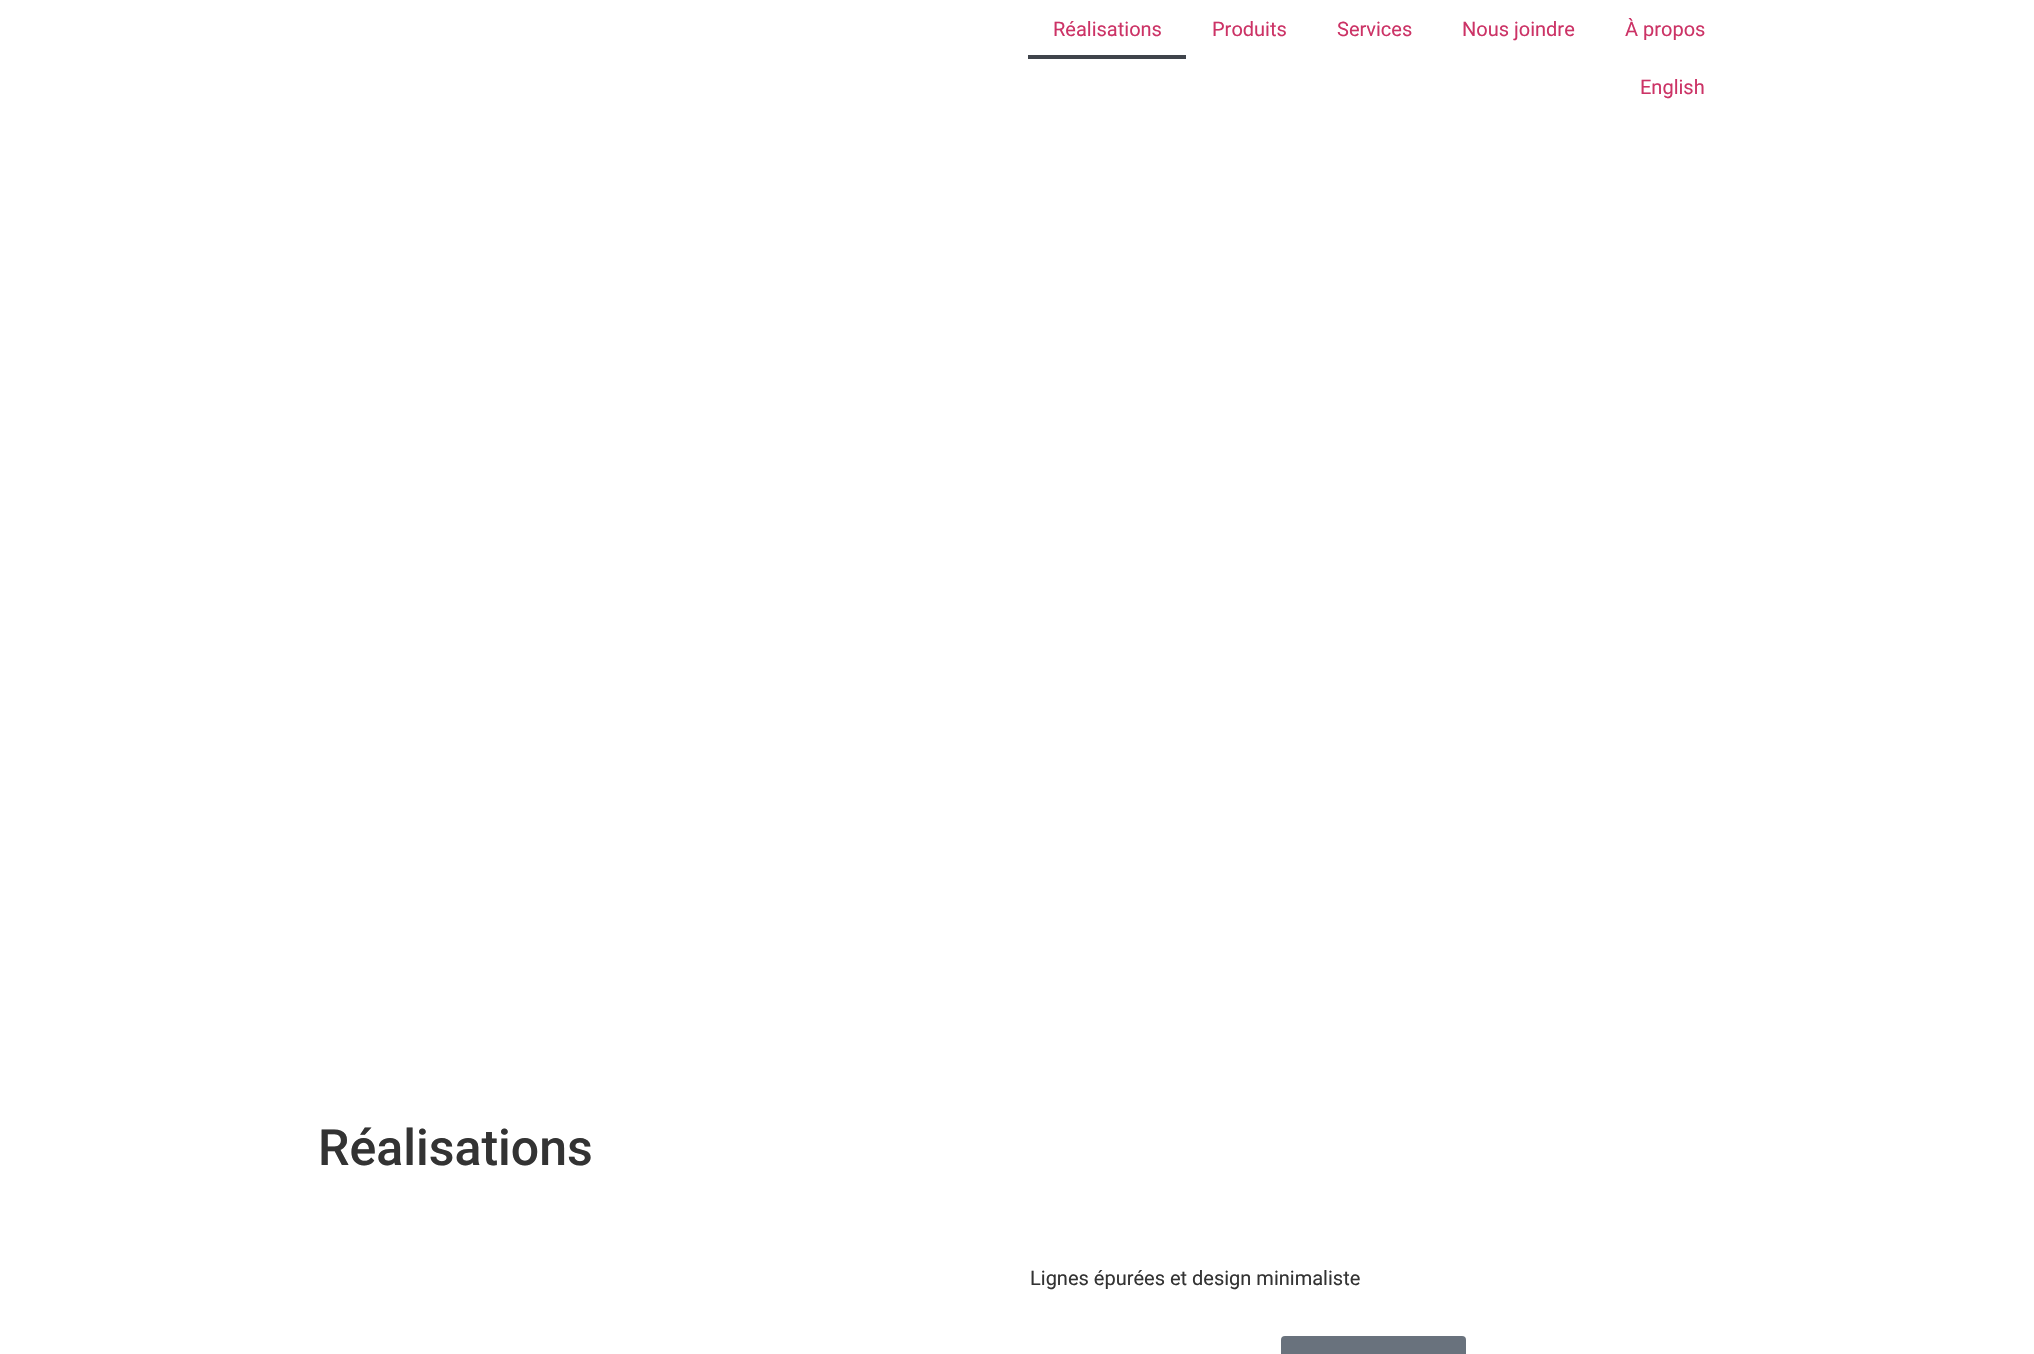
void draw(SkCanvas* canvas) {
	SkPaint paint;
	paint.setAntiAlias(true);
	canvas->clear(0xffffffff);
	SkFont f1(fontMgr->matchFamilyStyle("Roboto", SkFontStyle::Normal()), 20);
	f1.setSubpixel(true);
	paint.setColor(0xffcc3366);
	canvas->drawString("Réalisations", 1053, 36, f1, paint);
	paint.setColor(0xff3f444b);
	canvas->drawRect(SkRect::MakeXYWH(1028, 55, 158, 4), paint);
	paint.setColor(0xffcc3366);
	canvas->drawString("Produits", 1212, 36, f1, paint);
	canvas->drawString("Services", 1337, 36, f1, paint);
	canvas->drawString("Nous joindre", 1462, 36, f1, paint);
	canvas->drawString("À propos", 1625, 36, f1, paint);
	canvas->drawString("English", 1640, 94, f1, paint);
	SkFont f2(fontMgr->matchFamilyStyle("Roboto", SkFontStyle(500, SkFontStyle::kNormal_Width, SkFontStyle::kUpright_Slant)), 50);
	f2.setSubpixel(true);
	paint.setColor(0xff333333);
	canvas->drawString("Réalisations", 318, 1165, f2, paint);
	canvas->drawString("Lignes épurées et design minimaliste", 1030, 1285, f1, paint);
	paint.setColor(0xff69727d);
	canvas->drawRoundRect(SkRect::MakeXYWH(1281, 1336, 185, 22), 4, 4, paint);
}
